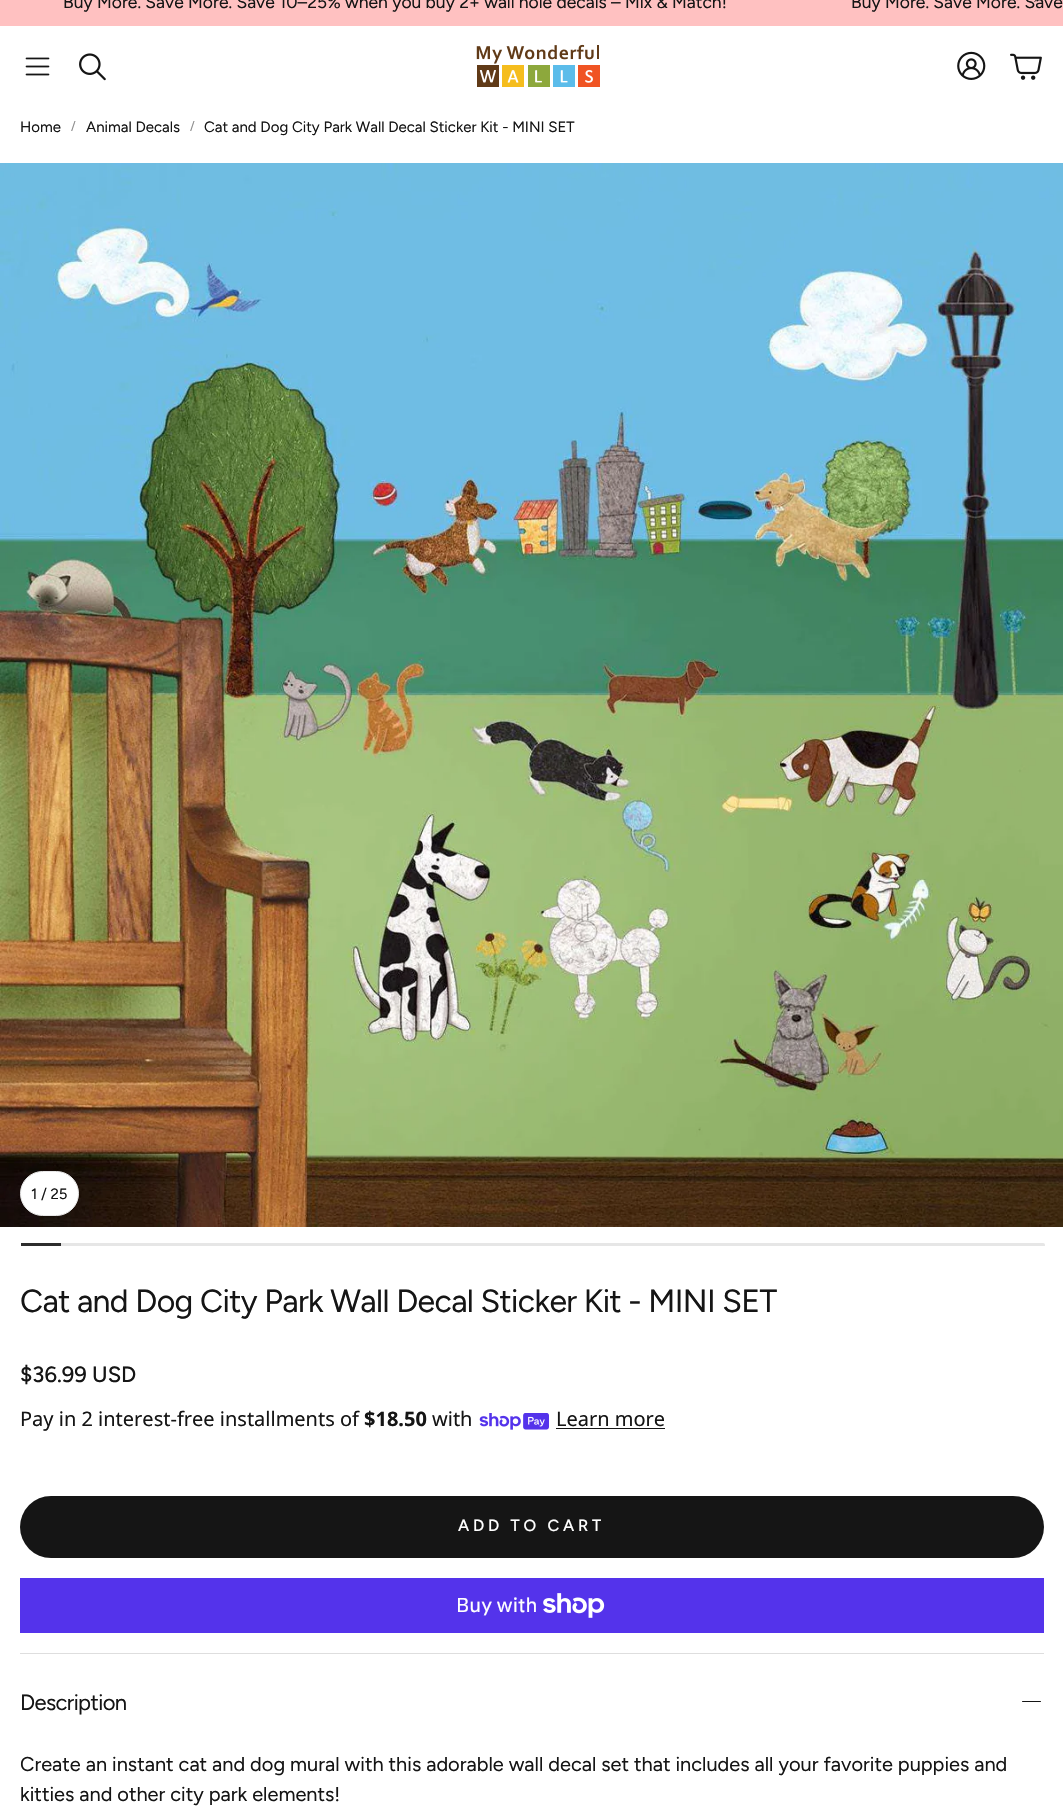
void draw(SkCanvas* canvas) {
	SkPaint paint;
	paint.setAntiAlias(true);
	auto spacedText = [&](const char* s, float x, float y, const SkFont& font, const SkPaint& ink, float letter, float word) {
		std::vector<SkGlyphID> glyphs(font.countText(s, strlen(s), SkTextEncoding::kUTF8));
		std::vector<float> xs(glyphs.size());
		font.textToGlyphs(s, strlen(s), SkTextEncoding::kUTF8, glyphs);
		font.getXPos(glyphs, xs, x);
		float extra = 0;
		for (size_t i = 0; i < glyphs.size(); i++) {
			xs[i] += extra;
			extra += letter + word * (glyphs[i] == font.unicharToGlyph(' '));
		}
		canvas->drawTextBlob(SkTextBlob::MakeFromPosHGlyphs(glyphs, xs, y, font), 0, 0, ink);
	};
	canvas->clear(0xffffffff);
	paint.setColor(0xffffc1c1);
	canvas->drawRect(SkRect::MakeXYWH(0, 0, 1063, 26), paint);
	SkFont f1(fontMgr->matchFamilyStyle("Figtree", SkFontStyle::Normal()), 17.5);
	f1.setSubpixel(true);
	paint.setColor(0xff151515);
	canvas->drawString("Buy More. Save More. Save 10–25% when you buy 2+ wall hole decals – Mix & Match!", 63, 8, f1, paint);
	canvas->drawString("Buy More. Save More. Save", 851, 8, f1, paint);
	canvas->drawImageRect(SkImages::DeferredFromEncodedData(SkData::MakeFromFileName("img1.png")), SkRect::MakeXYWH(1034, 0, 10, 2), SkSamplingOptions());
	canvas->drawImageRect(SkImages::DeferredFromEncodedData(SkData::MakeFromFileName("img2.png")), SkRect::MakeXYWH(25, 57, 25, 19), SkSamplingOptions());
	canvas->drawImageRect(SkImages::DeferredFromEncodedData(SkData::MakeFromFileName("img3.png")), SkRect::MakeXYWH(79, 53, 27, 28), SkSamplingOptions());
	canvas->drawImageRect(SkImages::DeferredFromEncodedData(SkData::MakeFromFileName("img4.png")), SkRect::MakeXYWH(476, 44, 124, 43), SkSamplingOptions());
	canvas->drawImageRect(SkImages::DeferredFromEncodedData(SkData::MakeFromFileName("img5.png")), SkRect::MakeXYWH(957, 51, 29, 29), SkSamplingOptions());
	canvas->drawImageRect(SkImages::DeferredFromEncodedData(SkData::MakeFromFileName("img6.png")), SkRect::MakeXYWH(1010, 53, 32, 27), SkSamplingOptions());
	SkFont f2(fontMgr->matchFamilyStyle("Figtree", SkFontStyle::Normal()), 15);
	f2.setSubpixel(true);
	canvas->drawString("Home", 20, 132, f2, paint);
	SkFont f3(fontMgr->matchFamilyStyle("Figtree", SkFontStyle::Normal()), 12);
	f3.setSubpixel(true);
	paint.setColor(0xff8a8a8a);
	canvas->drawString("/", 71, 130, f3, paint);
	paint.setColor(0xff151515);
	canvas->drawString("Animal Decals", 86, 132, f2, paint);
	paint.setColor(0xff8a8a8a);
	canvas->drawString("/", 190, 130, f3, paint);
	paint.setColor(0xff151515);
	canvas->drawString("Cat and Dog City Park Wall Decal Sticker Kit - MINI SET", 204, 132, f2, paint);
	canvas->drawImageRect(SkImages::DeferredFromEncodedData(SkData::MakeFromFileName("img7.png")), SkRect::MakeXYWH(0, 163, 1063, 1064), SkSamplingOptions());
	paint.setColor(0xffffffff);
	canvas->drawRoundRect(SkRect::MakeXYWH(20.5, 1171.5, 58, 44), 22, 22, paint);
	paint.setStroke(true);
	paint.setStrokeWidth(1);
	paint.setColor(0xffe7e7e7);
	canvas->drawRoundRect(SkRect::MakeXYWH(20.5, 1171.5, 58, 44), 22, 22, paint);
	paint.setStroke(false);
	paint.setColor(0xff151515);
	canvas->drawString("1 / 25", 31, 1199, f2, paint);
	canvas->save();
	canvas->clipRect(SkRect::MakeXYWH(0, 163, 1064, 1083));
	paint.setColor(0xffe6e6e6);
	canvas->drawRoundRect(SkRect::MakeXYWH(21, 1243, 1024, 4), 2, 2, paint);
	canvas->restore();
	paint.setColor(0xff2d2d2d);
	canvas->drawRect(SkRect::MakeXYWH(21, 1243, 40, 3), paint);
	SkFont f4(fontMgr->matchFamilyStyle("Figtree", SkFontStyle::Normal()), 32);
	f4.setSubpixel(true);
	paint.setColor(0xff151515);
	spacedText("Cat and Dog City Park Wall Decal Sticker Kit - MINI SET", 20, 1312, f4, paint, -0.62, 0);
	SkFont f5(fontMgr->matchFamilyStyle("Figtree", SkFontStyle(500, SkFontStyle::kNormal_Width, SkFontStyle::kUpright_Slant)), 22);
	f5.setSubpixel(true);
	canvas->drawString("$36.99 USD", 20, 1382, f5, paint);
	SkFont f6(fontMgr->matchFamilyStyle("Noto Sans", SkFontStyle::Normal()), 20);
	f6.setSubpixel(true);
	canvas->drawString("Pay in 2 interest-free installments of", 20, 1426, f6, paint);
	SkFont f7(fontMgr->matchFamilyStyle("Noto Sans", SkFontStyle::Bold()), 20);
	f7.setSubpixel(true);
	canvas->drawString("$18.50", 364, 1426, f7, paint);
	canvas->drawString("with", 432, 1426, f6, paint);
	canvas->drawImageRect(SkImages::DeferredFromEncodedData(SkData::MakeFromFileName("img8.png")), SkRect::MakeXYWH(479, 1413, 70, 17), SkSamplingOptions());
	canvas->drawString("Learn more", 556, 1426, f6, paint);
	canvas->drawRect(SkRect::MakeXYWH(556, 1428, 109, 1), paint);
	canvas->drawRoundRect(SkRect::MakeXYWH(20, 1496, 1024, 62), 31, 31, paint);
	SkFont f8(fontMgr->matchFamilyStyle("Figtree", SkFontStyle(500, SkFontStyle::kNormal_Width, SkFontStyle::kUpright_Slant)), 16.25);
	f8.setSubpixel(true);
	paint.setColor(0xffffffff);
	spacedText("ADD TO CART", 458, 1531, f8, paint, 3.75, 0);
	paint.setColor(0xff5433eb);
	canvas->drawRect(SkRect::MakeXYWH(20, 1578, 1024, 55), paint);
	SkFont f9(fontMgr->matchFamilyStyle("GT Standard", SkFontStyle::Normal()), 20);
	f9.setSubpixel(true);
	paint.setColor(0xffffffff);
	canvas->drawString("Buy with", 456, 1612, f9, paint);
	canvas->drawImageRect(SkImages::DeferredFromEncodedData(SkData::MakeFromFileName("img9.png")), SkRect::MakeXYWH(543, 1593, 62, 25), SkSamplingOptions());
	paint.setColor(0xffdedede);
	canvas->drawRect(SkRect::MakeXYWH(20, 1653, 1024, 1), paint);
	SkFont f10(fontMgr->matchFamilyStyle("Figtree", SkFontStyle::Normal()), 22);
	f10.setSubpixel(true);
	paint.setColor(0xff151515);
	spacedText("Description", 20, 1710, f10, paint, -0.62, 0);
	canvas->drawRoundRect(SkRect::MakeXYWH(1022, 1701, 19, 1), 0.5, 0.5, paint);
	SkFont f11(fontMgr->matchFamilyStyle("Figtree", SkFontStyle::Normal()), 20);
	f11.setSubpixel(true);
	canvas->drawString("Create an instant cat and dog mural with this adorable wall decal set that includes all your favorite puppies and", 20, 1771, f11, paint);
	canvas->drawString("kitties and other city park elements!", 20, 1801, f11, paint);
}
